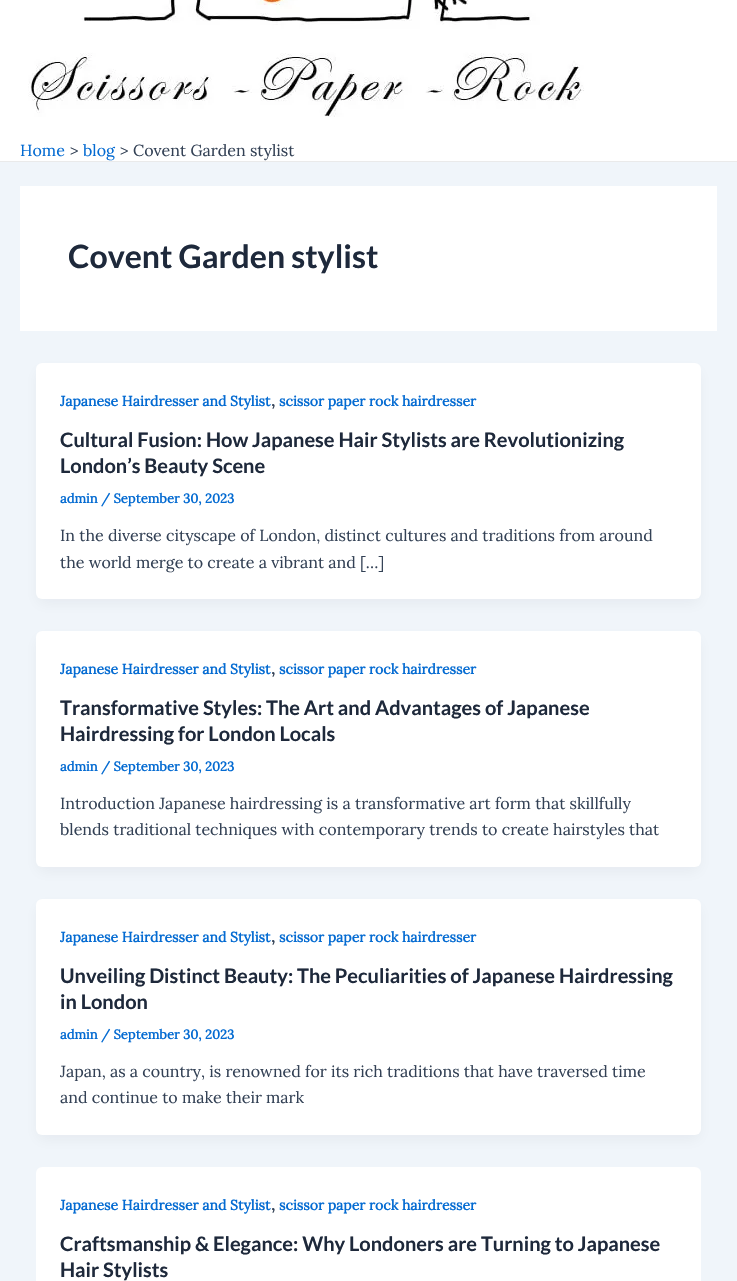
void draw(SkCanvas* canvas) {
	SkPaint paint;
	paint.setAntiAlias(true);
	canvas->clear(0xfff0f5fa);
	paint.setColor(0xffffffff);
	canvas->drawRect(SkRect::MakeXYWH(0, 0, 737, 161), paint);
	paint.setColor(0xffeaeaea);
	canvas->drawRect(SkRect::MakeXYWH(0, 161, 737, 1), paint);
	canvas->drawImageRect(SkImages::DeferredFromEncodedData(SkData::MakeFromFileName("img1.png")), SkRect::MakeXYWH(28, 0, 556, 117), SkSamplingOptions());
	SkFont f1(fontMgr->matchFamilyStyle("Lora", SkFontStyle::Normal()), 16);
	f1.setSubpixel(true);
	paint.setColor(0xff046bd2);
	canvas->drawString("Home", 20, 156, f1, paint);
	paint.setColor(0xff334155);
	canvas->drawString(">", 70, 156, f1, paint);
	paint.setColor(0xff046bd2);
	canvas->drawString("blog", 83, 156, f1, paint);
	paint.setColor(0xff334155);
	canvas->drawString(">", 120, 156, f1, paint);
	canvas->drawString("Covent Garden stylist", 133, 156, f1, paint);
	paint.setColor(0xffffffff);
	canvas->drawRect(SkRect::MakeXYWH(20, 186, 697, 145), paint);
	SkFont f2(fontMgr->matchFamilyStyle("Lato", SkFontStyle::Bold()), 32);
	f2.setSubpixel(true);
	paint.setColor(0xff1e293b);
	canvas->drawString("Covent Garden stylist", 68, 268, f2, paint);
	paint.setColor(0x0d101828);
	paint.setMaskFilter(SkMaskFilter::MakeBlur(kNormal_SkBlurStyle, 7.5));
	canvas->drawRoundRect(SkRect::MakeXYWH(38, 371, 661, 232), 4, 4, paint);
	paint.setMaskFilter(nullptr);
	paint.setColor(0xffffffff);
	canvas->drawRoundRect(SkRect::MakeXYWH(36, 363, 665, 236), 6, 6, paint);
	SkFont f3(fontMgr->matchFamilyStyle("Lora", SkFontStyle::Bold()), 14);
	f3.setSubpixel(true);
	paint.setColor(0xff046bd2);
	canvas->drawString("Japanese Hairdresser and Stylist", 60, 406, f3, paint);
	SkFont f4(fontMgr->matchFamilyStyle("Lora", SkFontStyle::Bold()), 16);
	f4.setSubpixel(true);
	paint.setColor(0xff334155);
	canvas->drawString(",", 271, 406, f4, paint);
	paint.setColor(0xff046bd2);
	canvas->drawString("scissor paper rock hairdresser", 279, 406, f3, paint);
	SkFont f5(fontMgr->matchFamilyStyle("Lato", SkFontStyle::Bold()), 20);
	f5.setSubpixel(true);
	paint.setColor(0xff1e293b);
	canvas->drawString("Cultural Fusion: How Japanese Hair Stylists are Revolutionizing", 60, 447, f5, paint);
	canvas->drawString("London’s Beauty Scene", 60, 473, f5, paint);
	SkFont f6(fontMgr->matchFamilyStyle("Lora", SkFontStyle::Bold()), 13);
	f6.setSubpixel(true);
	paint.setColor(0xff046bd2);
	canvas->drawString("admin / September 30, 2023", 60, 503, f6, paint);
	paint.setColor(0xff334155);
	canvas->drawString("In the diverse cityscape of London, distinct cultures and traditions from around", 60, 541, f1, paint);
	canvas->drawString("the world merge to create a vibrant and […]", 60, 568, f1, paint);
	paint.setColor(0x0d101828);
	paint.setMaskFilter(SkMaskFilter::MakeBlur(kNormal_SkBlurStyle, 7.5));
	canvas->drawRoundRect(SkRect::MakeXYWH(38, 639, 661, 232), 4, 4, paint);
	paint.setMaskFilter(nullptr);
	paint.setColor(0xffffffff);
	canvas->drawRoundRect(SkRect::MakeXYWH(36, 631, 665, 236), 6, 6, paint);
	paint.setColor(0xff046bd2);
	canvas->drawString("Japanese Hairdresser and Stylist", 60, 674, f3, paint);
	paint.setColor(0xff334155);
	canvas->drawString(",", 271, 674, f4, paint);
	paint.setColor(0xff046bd2);
	canvas->drawString("scissor paper rock hairdresser", 279, 674, f3, paint);
	paint.setColor(0xff1e293b);
	canvas->drawString("Transformative Styles: The Art and Advantages of Japanese", 60, 715, f5, paint);
	canvas->drawString("Hairdressing for London Locals", 60, 741, f5, paint);
	paint.setColor(0xff046bd2);
	canvas->drawString("admin / September 30, 2023", 60, 771, f6, paint);
	paint.setColor(0xff334155);
	canvas->drawString("Introduction Japanese hairdressing is a transformative art form that skillfully", 60, 809, f1, paint);
	canvas->drawString("blends traditional techniques with contemporary trends to create hairstyles that", 60, 835, f1, paint);
	paint.setColor(0x0d101828);
	paint.setMaskFilter(SkMaskFilter::MakeBlur(kNormal_SkBlurStyle, 7.5));
	canvas->drawRoundRect(SkRect::MakeXYWH(38, 907, 661, 232), 4, 4, paint);
	paint.setMaskFilter(nullptr);
	paint.setColor(0xffffffff);
	canvas->drawRoundRect(SkRect::MakeXYWH(36, 899, 665, 236), 6, 6, paint);
	paint.setColor(0xff046bd2);
	canvas->drawString("Japanese Hairdresser and Stylist", 60, 942, f3, paint);
	paint.setColor(0xff334155);
	canvas->drawString(",", 271, 942, f4, paint);
	paint.setColor(0xff046bd2);
	canvas->drawString("scissor paper rock hairdresser", 279, 942, f3, paint);
	paint.setColor(0xff1e293b);
	canvas->drawString("Unveiling Distinct Beauty: The Peculiarities of Japanese Hairdressing", 60, 983, f5, paint);
	canvas->drawString("in London", 60, 1009, f5, paint);
	paint.setColor(0xff046bd2);
	canvas->drawString("admin / September 30, 2023", 60, 1039, f6, paint);
	paint.setColor(0xff334155);
	canvas->drawString("Japan, as a country, is renowned for its rich traditions that have traversed time", 60, 1077, f1, paint);
	canvas->drawString("and continue to make their mark", 60, 1103, f1, paint);
	paint.setColor(0xffffffff);
	canvas->drawRoundRect(SkRect::MakeXYWH(36, 1167, 665, 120), 6, 6, paint);
	paint.setColor(0xff046bd2);
	canvas->drawString("Japanese Hairdresser and Stylist", 60, 1210, f3, paint);
	paint.setColor(0xff334155);
	canvas->drawString(",", 271, 1210, f4, paint);
	paint.setColor(0xff046bd2);
	canvas->drawString("scissor paper rock hairdresser", 279, 1210, f3, paint);
	paint.setColor(0xff1e293b);
	canvas->drawString("Craftsmanship & Elegance: Why Londoners are Turning to Japanese", 60, 1251, f5, paint);
	canvas->drawString("Hair Stylists", 60, 1277, f5, paint);
}
